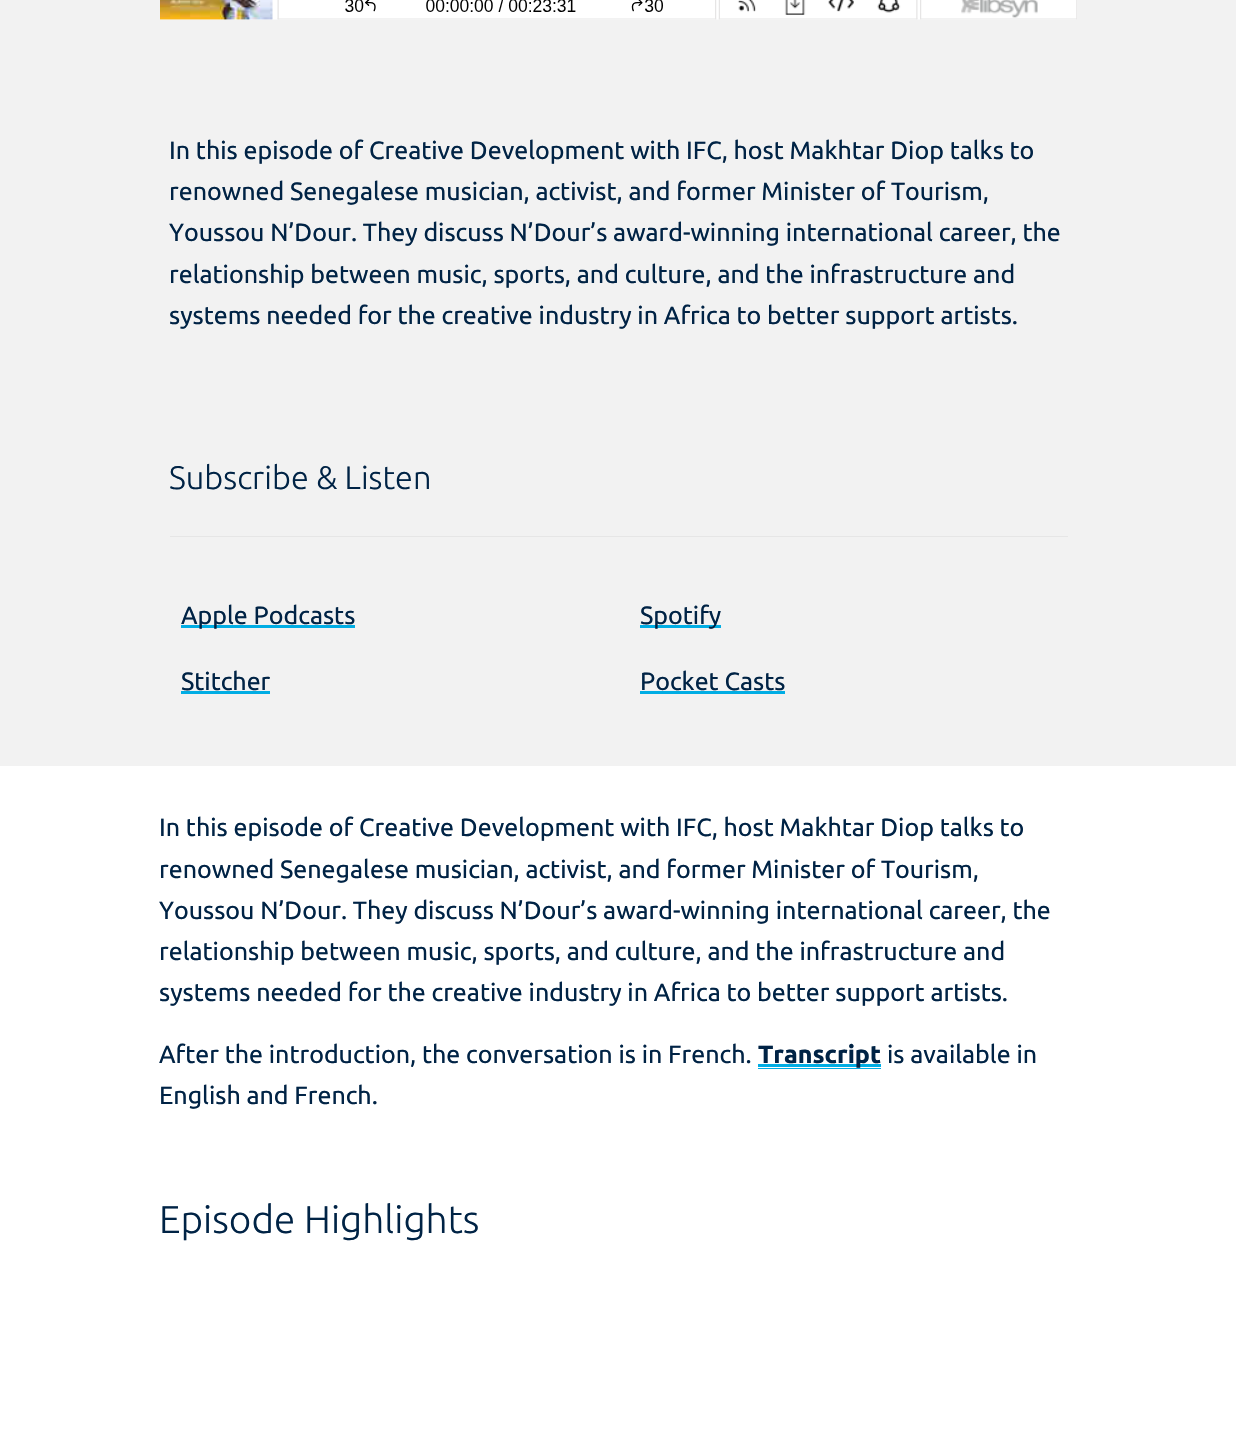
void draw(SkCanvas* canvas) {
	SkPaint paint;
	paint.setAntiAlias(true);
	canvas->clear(0xffffffff);
	paint.setColor(0xfff2f2f2);
	canvas->drawRect(SkRect::MakeXYWH(0, 0, 1236, 766), paint);
	canvas->drawImageRect(SkImages::DeferredFromEncodedData(SkData::MakeFromFileName("img1.png")), SkRect::MakeXYWH(160, 0, 917, 20), SkSamplingOptions());
	SkFont f1(fontMgr->matchFamilyStyle("Ubuntu", SkFontStyle::Normal()), 25);
	f1.setSubpixel(true);
	paint.setColor(0xff002345);
	canvas->drawString("In this episode of Creative Development with IFC, host Makhtar Diop talks to", 169, 159, f1, paint);
	canvas->drawString("renowned Senegalese musician, activist, and former Minister of Tourism,", 169, 200, f1, paint);
	canvas->drawString("Youssou N’Dour. They discuss N’Dour’s award-winning international career, the", 169, 241, f1, paint);
	canvas->drawString("relationship between music, sports, and culture, and the infrastructure and", 169, 283, f1, paint);
	canvas->drawString("systems needed for the creative industry in Africa to better support artists.", 169, 324, f1, paint);
	SkFont f2(fontMgr->matchFamilyStyle("Ubuntu", SkFontStyle(300, SkFontStyle::kNormal_Width, SkFontStyle::kUpright_Slant)), 32.5);
	f2.setSubpixel(true);
	canvas->drawString("Subscribe & Listen", 169, 489, f2, paint);
	paint.setColor(0xffe6e6e6);
	canvas->drawRect(SkRect::MakeXYWH(170, 536, 898, 1), paint);
	paint.setColor(0xff00ade4);
	canvas->drawRect(SkRect::MakeXYWH(181, 625, 174, 3), paint);
	paint.setColor(0xff002345);
	canvas->drawString("Apple Podcasts", 181, 624, f1, paint);
	paint.setColor(0xff00ade4);
	canvas->drawRect(SkRect::MakeXYWH(640, 625, 81, 3), paint);
	paint.setColor(0xff002345);
	canvas->drawString("Spotify", 640, 624, f1, paint);
	canvas->drawString("Stitcher", 181, 690, f1, paint);
	paint.setColor(0xff00ade4);
	canvas->drawRect(SkRect::MakeXYWH(181, 691, 89, 3), paint);
	paint.setColor(0xff002345);
	canvas->drawString("Pocket Casts", 640, 690, f1, paint);
	paint.setColor(0xff00ade4);
	canvas->drawRect(SkRect::MakeXYWH(640, 691, 145, 3), paint);
	paint.setColor(0xff002345);
	canvas->drawString("In this episode of Creative Development with IFC, host Makhtar Diop talks to", 159, 836, f1, paint);
	canvas->drawString("renowned Senegalese musician, activist, and former Minister of Tourism,", 159, 878, f1, paint);
	canvas->drawString("Youssou N’Dour. They discuss N’Dour’s award-winning international career, the", 159, 919, f1, paint);
	canvas->drawString("relationship between music, sports, and culture, and the infrastructure and", 159, 960, f1, paint);
	canvas->drawString("systems needed for the creative industry in Africa to better support artists.", 159, 1001, f1, paint);
	canvas->drawString("After the introduction, the conversation is in French.", 159, 1063, f1, paint);
	paint.setColor(0xff00ade4);
	canvas->drawRect(SkRect::MakeXYWH(758, 1064, 123, 3), paint);
	SkFont f3(fontMgr->matchFamilyStyle("Ubuntu", SkFontStyle::Bold()), 25);
	f3.setSubpixel(true);
	paint.setColor(0xff002345);
	canvas->drawString("Transcript", 758, 1063, f3, paint);
	paint.setColor(0xff00ade4);
	canvas->drawRect(SkRect::MakeXYWH(758, 1068, 123, 1), paint);
	paint.setColor(0xff002345);
	canvas->drawString("is available in", 887, 1063, f1, paint);
	canvas->drawString("English and French.", 159, 1104, f1, paint);
	SkFont f4(fontMgr->matchFamilyStyle("Ubuntu", SkFontStyle(300, SkFontStyle::kNormal_Width, SkFontStyle::kUpright_Slant)), 38.75);
	f4.setSubpixel(true);
	canvas->drawString("Episode Highlights", 159, 1233, f4, paint);
}
